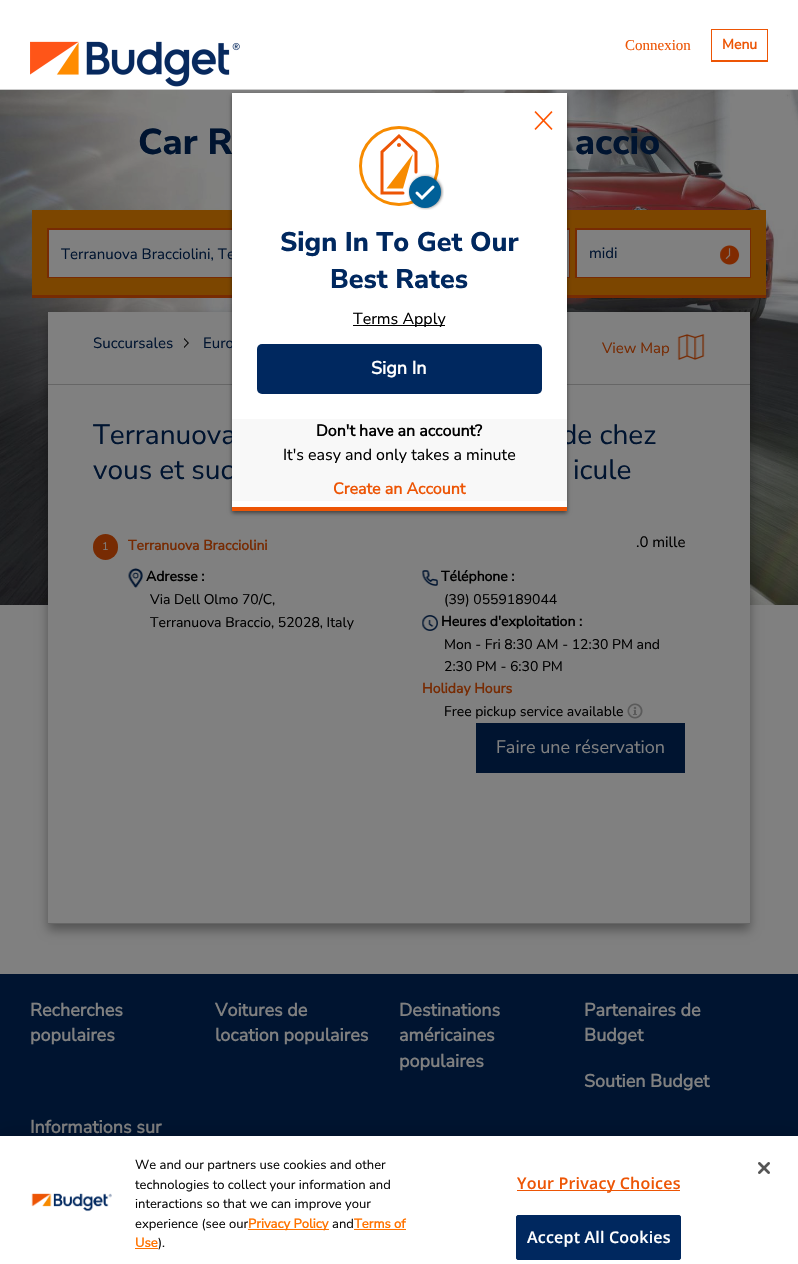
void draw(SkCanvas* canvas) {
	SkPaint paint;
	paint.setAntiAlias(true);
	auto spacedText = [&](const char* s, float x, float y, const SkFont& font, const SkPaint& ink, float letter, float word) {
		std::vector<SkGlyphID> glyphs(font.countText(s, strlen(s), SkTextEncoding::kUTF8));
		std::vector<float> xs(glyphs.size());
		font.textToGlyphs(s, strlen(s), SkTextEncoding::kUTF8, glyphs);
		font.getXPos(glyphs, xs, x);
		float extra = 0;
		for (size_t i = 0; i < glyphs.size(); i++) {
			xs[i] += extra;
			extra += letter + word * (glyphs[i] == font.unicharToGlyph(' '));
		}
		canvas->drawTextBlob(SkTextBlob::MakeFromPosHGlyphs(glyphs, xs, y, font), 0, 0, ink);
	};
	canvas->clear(0xff808080);
	paint.setColor(0xffffffff);
	canvas->drawRect(SkRect::MakeXYWH(0, 0, 798, 89), paint);
	paint.setColor(0xffcccccc);
	canvas->drawRect(SkRect::MakeXYWH(0, 89, 798, 1), paint);
	canvas->drawImageRect(SkImages::DeferredFromEncodedData(SkData::MakeFromFileName("img1.png")), SkRect::MakeXYWH(30, 41, 210, 46), SkSamplingOptions());
	SkFont f1(fontMgr->matchFamilyStyle("Liberation Serif", SkFontStyle::Normal()), 15);
	f1.setSubpixel(true);
	paint.setColor(0xffed5505);
	canvas->drawString("Connexion", 625, 50, f1, paint);
	canvas->drawRect(SkRect::MakeXYWH(711, 61, 57, 1), paint);
	paint.setStroke(true);
	paint.setStrokeWidth(1);
	canvas->drawRect(SkRect::MakeXYWH(711.5, 29.5, 56, 31), paint);
	SkFont f2(fontMgr->matchFamilyStyle("Nunito Sans", SkFontStyle::Bold()), 14);
	f2.setSubpixel(true);
	paint.setStroke(false);
	canvas->drawString("Menu", 722, 49, f2, paint);
	canvas->drawImageRect(SkImages::DeferredFromEncodedData(SkData::MakeFromFileName("img4.png")), SkRect::MakeXYWH(0, 90, 798, 515), SkSamplingOptions());
	SkFont f3(fontMgr->matchFamilyStyle("Nunito Sans", SkFontStyle(800, SkFontStyle::kNormal_Width, SkFontStyle::kUpright_Slant)), 36);
	f3.setSubpixel(true);
	paint.setColor(0xff001430);
	canvas->drawString("Car R", 138, 154, f3, paint);
	canvas->drawString("accio", 575, 154, f3, paint);
	paint.setColor(0xff7c4600);
	canvas->drawRect(SkRect::MakeXYWH(32, 210, 734, 85), paint);
	paint.setColor(0xff772b03);
	canvas->drawRect(SkRect::MakeXYWH(32, 295, 734, 3), paint);
	paint.setColor(0xff808080);
	canvas->drawRect(SkRect::MakeXYWH(49, 230, 183, 47), paint);
	paint.setColor(0xff772b03);
	canvas->drawRect(SkRect::MakeXYWH(47, 228, 185, 2), paint);
	canvas->drawRect(SkRect::MakeXYWH(47, 277, 185, 1), paint);
	paint.setColor(0xff808080);
	canvas->drawRect(SkRect::MakeXYWH(567, 230, 2, 47), paint);
	paint.setColor(0xff772b03);
	canvas->drawRect(SkRect::MakeXYWH(567, 228, 3, 2), paint);
	canvas->drawRect(SkRect::MakeXYWH(569, 228, 1, 50), paint);
	canvas->drawRect(SkRect::MakeXYWH(567, 277, 3, 1), paint);
	paint.setColor(0x59000000);
	paint.setMaskFilter(SkMaskFilter::MakeBlur(kNormal_SkBlurStyle, 5));
	canvas->drawRect(SkRect::MakeXYWH(48, 318, 702, 73), paint);
	paint.setMaskFilter(nullptr);
	paint.setMaskFilter(SkMaskFilter::MakeBlur(kNormal_SkBlurStyle, 5));
	canvas->drawRect(SkRect::MakeXYWH(48, 384, 702, 546), paint);
	paint.setMaskFilter(nullptr);
	paint.setColor(0xff808080);
	canvas->drawRect(SkRect::MakeXYWH(48, 312, 702, 72), paint);
	paint.setColor(0xff666666);
	canvas->drawRect(SkRect::MakeXYWH(48, 384, 702, 1), paint);
	paint.setColor(0xff808080);
	canvas->drawRect(SkRect::MakeXYWH(48, 385, 702, 538), paint);
	paint.setColor(0x80000000);
	paint.setMaskFilter(SkMaskFilter::MakeBlur(kNormal_SkBlurStyle, 2));
	canvas->drawRect(SkRect::MakeXYWH(232, 95, 335, 418), paint);
	paint.setMaskFilter(nullptr);
	SkFont f4(fontMgr->matchFamilyStyle("Nunito Sans", SkFontStyle::Normal()), 15);
	f4.setSubpixel(true);
	paint.setColor(0xff001430);
	canvas->drawString("Terranuova Bracciolini, Te", 61, 259, f4, paint);
	canvas->drawString("Euro", 203, 348, f4, paint);
	SkFont f5(fontMgr->matchFamilyStyle("Nunito Sans", SkFontStyle::Normal()), 28);
	f5.setSubpixel(true);
	canvas->drawString("Terranuova", 93, 444, f5, paint);
	canvas->drawString("de chez", 561, 444, f5, paint);
	canvas->drawString("vous et suc", 93, 479, f5, paint);
	paint.setColor(0xffffffff);
	canvas->drawRect(SkRect::MakeXYWH(232, 93, 335, 414), paint);
	paint.setColor(0xffed5505);
	canvas->drawRect(SkRect::MakeXYWH(232, 507, 335, 4), paint);
	canvas->drawImageRect(SkImages::DeferredFromEncodedData(SkData::MakeFromFileName("img2.png")), SkRect::MakeXYWH(534, 111, 19, 19), SkSamplingOptions());
	canvas->drawImageRect(SkImages::DeferredFromEncodedData(SkData::MakeFromFileName("img3.png")), SkRect::MakeXYWH(359, 126, 85, 84), SkSamplingOptions());
	SkFont f6(fontMgr->matchFamilyStyle("Nunito Sans", SkFontStyle(800, SkFontStyle::kNormal_Width, SkFontStyle::kUpright_Slant)), 27);
	f6.setSubpixel(true);
	paint.setColor(0xff00285f);
	canvas->drawString("Sign In To Get Our", 280, 251, f6, paint);
	canvas->drawString("Best Rates", 330, 288, f6, paint);
	paint.setColor(0xff000000);
	canvas->drawRect(SkRect::MakeXYWH(353, 325, 92, 1), paint);
	SkFont f7(fontMgr->matchFamilyStyle("Nunito Sans", SkFontStyle::Normal()), 16);
	f7.setSubpixel(true);
	canvas->drawString("Terms Apply", 353, 324, f7, paint);
	paint.setColor(0xff00285f);
	canvas->drawRoundRect(SkRect::MakeXYWH(257, 344, 285, 50), 5, 5, paint);
	SkFont f8(fontMgr->matchFamilyStyle("Nunito Sans", SkFontStyle::Bold()), 18);
	f8.setSubpixel(true);
	paint.setColor(0xffffffff);
	canvas->drawString("Sign In", 371, 374, f8, paint);
	paint.setColor(0xfff8f8f8);
	canvas->drawRect(SkRect::MakeXYWH(232, 419, 335, 82), paint);
	SkFont f9(fontMgr->matchFamilyStyle("Nunito Sans", SkFontStyle::Bold()), 16);
	f9.setSubpixel(true);
	paint.setColor(0xff000000);
	canvas->drawString("Don't have an account?", 316, 436, f9, paint);
	canvas->drawString("It's easy and only takes a minute", 283, 460, f7, paint);
	paint.setColor(0xffed5505);
	canvas->drawString("Create an Account", 333, 494, f9, paint);
	paint.setColor(0xff772b03);
	canvas->drawRect(SkRect::MakeXYWH(47, 228, 2, 50), paint);
	paint.setColor(0xff808080);
	canvas->drawRect(SkRect::MakeXYWH(577, 230, 173, 47), paint);
	canvas->drawImageRect(SkImages::DeferredFromEncodedData(SkData::MakeFromFileName("img5.png")), SkRect::MakeXYWH(720, 245, 20, 20), SkSamplingOptions());
	paint.setColor(0xff772b03);
	canvas->drawRect(SkRect::MakeXYWH(575, 228, 176, 2), paint);
	canvas->drawRect(SkRect::MakeXYWH(750, 228, 1, 50), paint);
	canvas->drawRect(SkRect::MakeXYWH(575, 277, 176, 1), paint);
	canvas->drawRect(SkRect::MakeXYWH(575, 228, 2, 50), paint);
	paint.setColor(0xff001430);
	canvas->drawString("midi", 589, 258, f4, paint);
	canvas->drawString("Succursales", 93, 348, f4, paint);
	canvas->drawImageRect(SkImages::DeferredFromEncodedData(SkData::MakeFromFileName("img6.png")), SkRect::MakeXYWH(184, 338, 5, 10), SkSamplingOptions());
	paint.setColor(0xff772b03);
	canvas->drawString("View Map", 602, 353, f4, paint);
	canvas->drawImageRect(SkImages::DeferredFromEncodedData(SkData::MakeFromFileName("img7.png")), SkRect::MakeXYWH(677, 334, 28, 26), SkSamplingOptions());
	paint.setColor(0xff666666);
	canvas->drawRect(SkRect::MakeXYWH(48, 923, 702, 1), paint);
	paint.setColor(0xff001430);
	canvas->drawString("icule", 573, 479, f5, paint);
	paint.setColor(0xff772b03);
	canvas->drawRoundRect(SkRect::MakeXYWH(93, 534, 25, 26), 12.5, 12.5, paint);
	SkFont f10(fontMgr->matchFamilyStyle("Nunito Sans", SkFontStyle::Normal()), 11);
	f10.setSubpixel(true);
	paint.setColor(0xff808080);
	canvas->drawString("1", 102, 550, f10, paint);
	paint.setColor(0xff772b03);
	canvas->drawString("Terranuova Bracciolini", 128, 550, f2, paint);
	paint.setColor(0xff000000);
	canvas->drawString(".0 mille", 636, 547, f4, paint);
	canvas->drawImageRect(SkImages::DeferredFromEncodedData(SkData::MakeFromFileName("img8.png")), SkRect::MakeXYWH(128, 568, 15, 20), SkSamplingOptions());
	canvas->drawString("Adresse :", 146, 581, f2, paint);
	SkFont f11(fontMgr->matchFamilyStyle("Nunito Sans", SkFontStyle::Normal()), 14);
	f11.setSubpixel(true);
	canvas->drawString("Via Dell Olmo 70/C,", 150, 604, f11, paint);
	canvas->drawString("Terranuova Braccio, 52028, Italy", 150, 627, f11, paint);
	canvas->drawImageRect(SkImages::DeferredFromEncodedData(SkData::MakeFromFileName("img9.png")), SkRect::MakeXYWH(422, 570, 16, 16), SkSamplingOptions());
	canvas->drawString("Téléphone :", 441, 581, f2, paint);
	canvas->drawString("(39) 0559189044", 444, 604, f11, paint);
	canvas->drawImageRect(SkImages::DeferredFromEncodedData(SkData::MakeFromFileName("img10.png")), SkRect::MakeXYWH(422, 615, 16, 16), SkSamplingOptions());
	canvas->drawString("Heures d'exploitation :", 441, 626, f2, paint);
	canvas->drawString("Mon - Fri 8:30 AM - 12:30 PM and", 444, 649, f11, paint);
	canvas->drawString("2:30 PM - 6:30 PM", 444, 671, f11, paint);
	paint.setColor(0xff772b03);
	canvas->drawString("Holiday Hours", 422, 693, f2, paint);
	paint.setColor(0xff000000);
	canvas->drawString("Free pickup service available", 444, 716, f11, paint);
	canvas->drawImageRect(SkImages::DeferredFromEncodedData(SkData::MakeFromFileName("img11.png")), SkRect::MakeXYWH(627, 703, 16, 16), SkSamplingOptions());
	paint.setColor(0xff001430);
	canvas->drawRect(SkRect::MakeXYWH(476, 723, 209, 50), paint);
	SkFont f12(fontMgr->matchFamilyStyle("Nunito Sans", SkFontStyle::Normal()), 18);
	f12.setSubpixel(true);
	paint.setColor(0xff808080);
	canvas->drawString("Faire une réservation", 496, 753, f12, paint);
	paint.setColor(0xff001430);
	canvas->drawRect(SkRect::MakeXYWH(0, 974, 798, 162), paint);
	paint.setColor(0xff808080);
	canvas->drawString("Recherches", 30, 1016, f8, paint);
	canvas->drawString("populaires", 30, 1041, f8, paint);
	canvas->drawString("Voitures de", 215, 1016, f8, paint);
	canvas->drawString("location populaires", 215, 1041, f8, paint);
	canvas->drawString("Destinations", 399, 1016, f8, paint);
	canvas->drawString("américaines", 399, 1041, f8, paint);
	canvas->drawString("populaires", 399, 1067, f8, paint);
	canvas->drawString("Partenaires de", 584, 1016, f8, paint);
	canvas->drawString("Budget", 584, 1041, f8, paint);
	canvas->drawString("Soutien Budget", 584, 1087, f8, paint);
	canvas->drawString("Informations sur", 30, 1133, f8, paint);
	paint.setColor(0x33000000);
	paint.setMaskFilter(SkMaskFilter::MakeBlur(kNormal_SkBlurStyle, 9));
	canvas->drawRect(SkRect::MakeXYWH(0, 1136, 798, 128), paint);
	paint.setMaskFilter(nullptr);
	paint.setColor(0xffffffff);
	canvas->drawRect(SkRect::MakeXYWH(0, 1136, 798, 128), paint);
	canvas->drawImageRect(SkImages::DeferredFromEncodedData(SkData::MakeFromFileName("img12.png")), SkRect::MakeXYWH(31, 1193, 81, 19), SkSamplingOptions());
	SkFont f13(fontMgr->matchFamilyStyle("Nunito Sans", SkFontStyle::Normal()), 13);
	f13.setSubpixel(true);
	paint.setColor(0xff0a0a0a);
	canvas->drawString("We and our partners use cookies and other", 135, 1169, f13, paint);
	canvas->drawString("technologies to collect your information and", 135, 1189, f13, paint);
	canvas->drawString("interactions so that we can improve your", 135, 1208, f13, paint);
	canvas->drawString("experience (see our", 135, 1228, f13, paint);
	paint.setColor(0xffff7300);
	canvas->drawRect(SkRect::MakeXYWH(248, 1229, 81, 1), paint);
	SkFont f14(fontMgr->matchFamilyStyle("Nunito Sans", SkFontStyle::Bold()), 13);
	f14.setSubpixel(true);
	canvas->drawString("Privacy Policy", 248, 1228, f14, paint);
	paint.setColor(0xff0a0a0a);
	canvas->drawString("and", 332, 1228, f13, paint);
	paint.setColor(0xffff7300);
	canvas->drawString("Terms of", 354, 1228, f14, paint);
	canvas->drawRect(SkRect::MakeXYWH(354, 1229, 52, 1), paint);
	canvas->drawString("Use", 135, 1247, f14, paint);
	canvas->drawRect(SkRect::MakeXYWH(135, 1248, 23, 1), paint);
	paint.setColor(0xff0a0a0a);
	canvas->drawString(").", 158, 1247, f13, paint);
	paint.setColor(0xffed5505);
	canvas->drawRect(SkRect::MakeXYWH(517, 1190, 163, 1), paint);
	SkFont f15(fontMgr->matchFamilyStyle("Open Sans", SkFontStyle(600, SkFontStyle::kNormal_Width, SkFontStyle::kUpright_Slant)), 16);
	f15.setSubpixel(true);
	spacedText("Your Privacy Choices", 517, 1189, f15, paint, 0.2, 0);
	paint.setColor(0xff00285f);
	canvas->drawRoundRect(SkRect::MakeXYWH(516.5, 1215.5, 164, 44), 1.5, 1.5, paint);
	paint.setStroke(true);
	canvas->drawRoundRect(SkRect::MakeXYWH(516.5, 1215.5, 164, 44), 1.5, 1.5, paint);
	paint.setStroke(false);
	paint.setColor(0xffffffff);
	spacedText("Accept All Cookies", 527, 1243, f15, paint, 0.2, 0);
	canvas->drawImageRect(SkImages::DeferredFromEncodedData(SkData::MakeFromFileName("img13.png")), SkRect::MakeXYWH(758, 1162, 12, 12), SkSamplingOptions());
}
